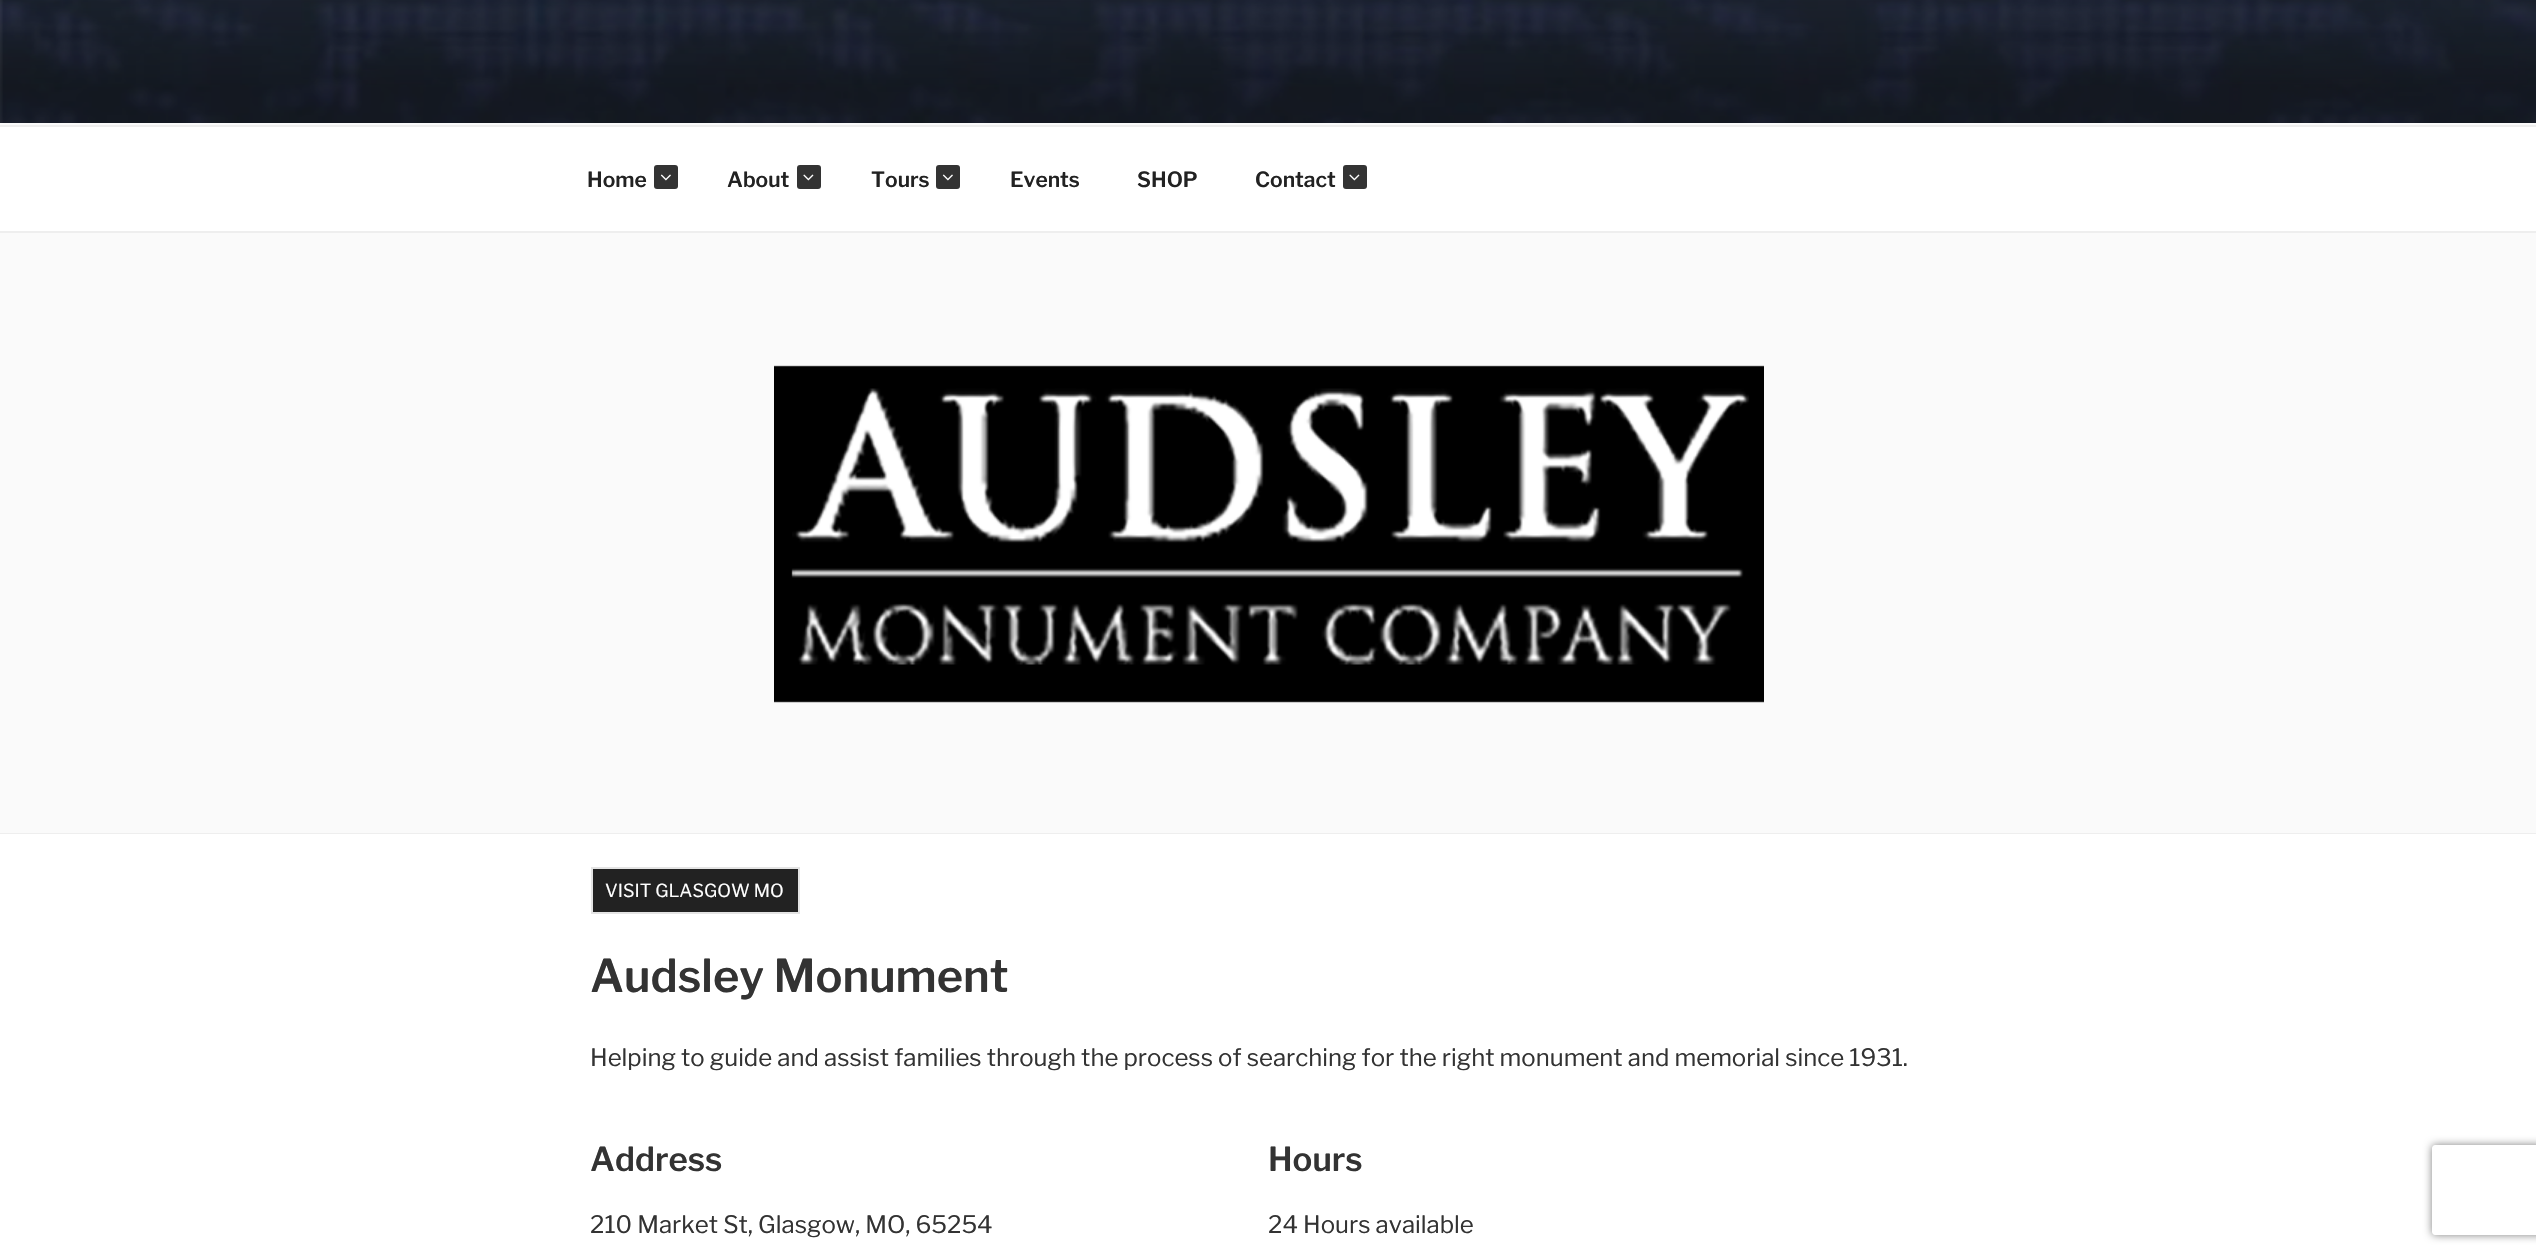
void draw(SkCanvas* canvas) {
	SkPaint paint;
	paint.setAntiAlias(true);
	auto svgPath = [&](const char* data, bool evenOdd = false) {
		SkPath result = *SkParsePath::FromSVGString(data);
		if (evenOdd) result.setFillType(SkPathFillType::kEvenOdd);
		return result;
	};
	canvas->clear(0xfffafafa);
	canvas->drawImageRect(SkImages::DeferredFromEncodedData(SkData::MakeFromFileName("img1.png")), SkRect::MakeXYWH(0, 0, 2536, 123), SkSamplingOptions());
	paint.setColor(0xffffffff);
	canvas->drawRect(SkRect::MakeXYWH(0, 127, 2536, 104), paint);
	paint.setColor(0xffeeeeee);
	canvas->drawRect(SkRect::MakeXYWH(0, 125, 2536, 2), paint);
	canvas->drawRect(SkRect::MakeXYWH(0, 231, 2536, 2), paint);
	SkFont f1(fontMgr->matchFamilyStyle("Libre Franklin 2", SkFontStyle(100, SkFontStyle::kNormal_Width, SkFontStyle::kUpright_Slant)), 21);
	f1.setSubpixel(true);
	paint.setColor(0xff222222);
	canvas->drawString("Home", 587, 187, f1, paint);
	paint.setColor(0xff333333);
	canvas->drawRoundRect(SkRect::MakeXYWH(654, 165, 24, 24), 3, 3, paint);
	canvas->drawImageRect(SkImages::DeferredFromEncodedData(SkData::MakeFromFileName("img2.png")), SkRect::MakeXYWH(660, 174, 11, 7), SkSamplingOptions());
	paint.setColor(0xff222222);
	canvas->drawString("About", 727, 187, f1, paint);
	paint.setColor(0xff333333);
	canvas->drawRoundRect(SkRect::MakeXYWH(797, 165, 24, 24), 3, 3, paint);
	canvas->drawImageRect(SkImages::DeferredFromEncodedData(SkData::MakeFromFileName("img3.png")), SkRect::MakeXYWH(803, 174, 11, 7), SkSamplingOptions());
	paint.setColor(0xff222222);
	canvas->drawString("Tours", 871, 187, f1, paint);
	paint.setColor(0xff333333);
	canvas->drawRoundRect(SkRect::MakeXYWH(936, 165, 24, 24), 3, 3, paint);
	canvas->drawImageRect(SkImages::DeferredFromEncodedData(SkData::MakeFromFileName("img2.png")), SkRect::MakeXYWH(942, 174, 11, 7), SkSamplingOptions());
	paint.setColor(0xff222222);
	canvas->drawString("Events", 1010, 187, f1, paint);
	canvas->drawString("SHOP", 1137, 187, f1, paint);
	canvas->drawString("Contact", 1255, 187, f1, paint);
	paint.setColor(0xff333333);
	canvas->drawRoundRect(SkRect::MakeXYWH(1343, 165, 24, 24), 3, 3, paint);
	canvas->drawImageRect(SkImages::DeferredFromEncodedData(SkData::MakeFromFileName("img3.png")), SkRect::MakeXYWH(1349, 174, 11, 7), SkSamplingOptions());
	paint.setColor(0xffeeeeee);
	canvas->drawRect(SkRect::MakeXYWH(0, 833, 2536, 1), paint);
	canvas->drawImageRect(SkImages::DeferredFromEncodedData(SkData::MakeFromFileName("img4.png")), SkRect::MakeXYWH(774, 365, 990, 338), SkSamplingOptions());
	paint.setColor(0xffffffff);
	canvas->drawRect(SkRect::MakeXYWH(0, 834, 2536, 421), paint);
	paint.setColor(0xff222222);
	canvas->drawRect(SkRect::MakeXYWH(592, 868, 207, 45), paint);
	paint.setStroke(true);
	paint.setStrokeWidth(2);
	paint.setColor(0xffe4e4e4);
	canvas->drawRect(SkRect::MakeXYWH(592, 868, 207, 45), paint);
	SkFont f2(fontMgr->matchFamilyStyle("Libre Franklin", SkFontStyle(100, SkFontStyle::kNormal_Width, SkFontStyle::kUpright_Slant)), 18);
	f2.setSubpixel(true);
	paint.setStroke(false);
	paint.setColor(0xffffffff);
	canvas->drawString("VISIT GLASGOW MO", 605, 897, f2, paint);
	SkFont f3(fontMgr->matchFamilyStyle("Libre Franklin 2", SkFontStyle(100, SkFontStyle::kNormal_Width, SkFontStyle::kUpright_Slant)), 45);
	f3.setSubpixel(true);
	paint.setColor(0xff333333);
	canvas->drawString("Audsley Monument", 590, 992, f3, paint);
	SkFont f4(fontMgr->matchFamilyStyle("Libre Franklin", SkFontStyle(100, SkFontStyle::kNormal_Width, SkFontStyle::kUpright_Slant)), 24);
	f4.setSubpixel(true);
	canvas->drawString("Helping to guide and assist families through the process of searching for the right monument and memorial since 1931.", 590, 1066, f4, paint);
	SkFont f5(fontMgr->matchFamilyStyle("Libre Franklin 2", SkFontStyle(100, SkFontStyle::kNormal_Width, SkFontStyle::kUpright_Slant)), 33);
	f5.setSubpixel(true);
	canvas->drawString("Address", 590, 1171, f5, paint);
	canvas->drawString("210 Market St, Glasgow, MO, 65254", 590, 1233, f4, paint);
	canvas->drawString("Hours", 1268, 1171, f5, paint);
	canvas->drawString("24 Hours available", 1268, 1233, f4, paint);
	canvas->save();
	canvas->clipPath(svgPath("M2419 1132H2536V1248H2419ZM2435 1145H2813C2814.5 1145 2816 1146.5 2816 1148V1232C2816 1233.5 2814.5 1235 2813 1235H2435C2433.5 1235 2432 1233.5 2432 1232V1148C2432 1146.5 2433.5 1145 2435 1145Z", true), true);
	paint.setColor(0xff808080);
	paint.setMaskFilter(SkMaskFilter::MakeBlur(kNormal_SkBlurStyle, 4));
	canvas->drawRoundRect(SkRect::MakeXYWH(2432, 1145, 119, 90), 3, 3, paint);
	paint.setMaskFilter(nullptr);
	canvas->restore();
}
